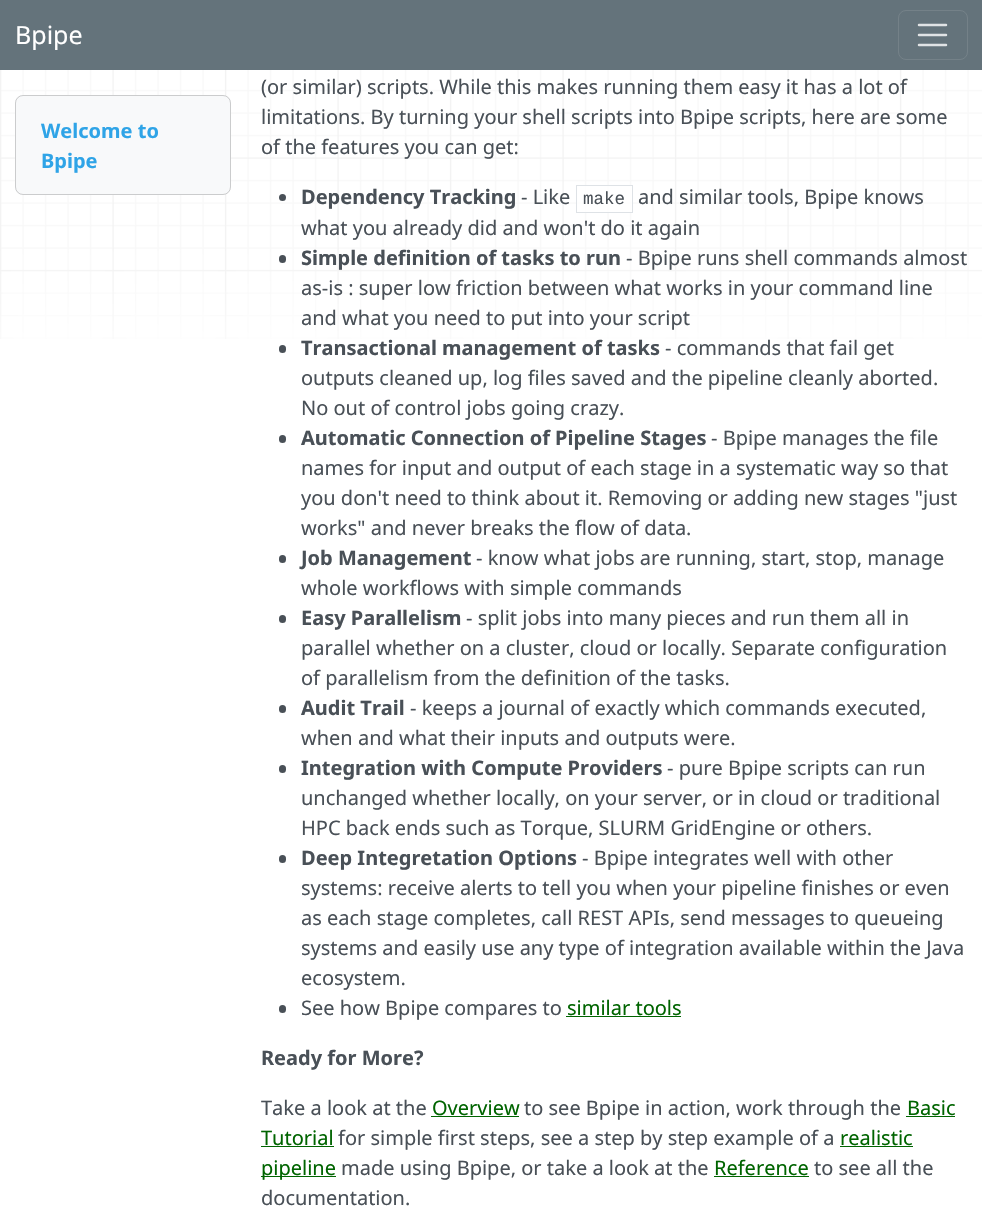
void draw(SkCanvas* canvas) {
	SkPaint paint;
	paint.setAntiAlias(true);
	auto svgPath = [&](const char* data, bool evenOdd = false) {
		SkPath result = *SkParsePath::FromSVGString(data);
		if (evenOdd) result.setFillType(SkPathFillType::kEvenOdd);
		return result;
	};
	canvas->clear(0xffffffff);
	paint.setColor(0xff64737b);
	canvas->drawRect(SkRect::MakeXYWH(0, 0, 982, 70), paint);
	SkFont f1(fontMgr->matchFamilyStyle("Noto Sans", SkFontStyle::Normal()), 25);
	f1.setSubpixel(true);
	paint.setColor(0xffffffff);
	canvas->drawString("Bpipe", 15, 44, f1, paint);
	paint.setStroke(true);
	paint.setStrokeWidth(1);
	paint.setColor(0xff748188);
	canvas->drawRoundRect(SkRect::MakeXYWH(898.5, 10.5, 69, 49), 7.5, 7.5, paint);
	paint.setStrokeWidth(2.5);
	paint.setStrokeCap(SkPaint::kRound_Cap);
	paint.setColor(0xffe0e3e5);
	canvas->drawPath(svgPath("M919 25H946M919 35H946M919 45H946"), paint);
	canvas->drawImageRect(SkImages::DeferredFromEncodedData(SkData::MakeFromFileName("img1.png")), SkRect::MakeXYWH(0, 70, 982, 269), SkSamplingOptions());
	paint.setStroke(false);
	paint.setColor(0xfff8f9fa);
	canvas->drawRoundRect(SkRect::MakeXYWH(15, 95, 216, 100), 8, 8, paint);
	paint.setStroke(true);
	paint.setStrokeWidth(1);
	paint.setStrokeCap(SkPaint::kButt_Cap);
	paint.setColor(0x2e000000);
	canvas->drawRoundRect(SkRect::MakeXYWH(15.5, 95.5, 215, 99), 7.5, 7.5, paint);
	SkFont f2(fontMgr->matchFamilyStyle("Noto Sans", SkFontStyle::Bold()), 20);
	f2.setSubpixel(true);
	paint.setStroke(false);
	paint.setColor(0xff2fa4e7);
	canvas->drawString("Welcome to", 41, 138, f2, paint);
	canvas->drawString("Bpipe", 41, 168, f2, paint);
	SkFont f3(fontMgr->matchFamilyStyle("Noto Sans", SkFontStyle::Normal()), 20);
	f3.setSubpixel(true);
	paint.setColor(0xff495057);
	canvas->drawString("(or similar) scripts. While this makes running them easy it has a lot of", 261, 94, f3, paint);
	canvas->drawString("limitations. By turning your shell scripts into Bpipe scripts, here are some", 261, 124, f3, paint);
	canvas->drawString("of the features you can get:", 261, 154, f3, paint);
	canvas->drawCircle(282.5, 197.5, 3.5, paint);
	canvas->drawString("Dependency Tracking", 301, 204, f2, paint);
	canvas->drawString("- Like", 521, 204, f3, paint);
	paint.setColor(0xbfffffff);
	canvas->drawRect(SkRect::MakeXYWH(576.5, 185.5, 56, 27), paint);
	paint.setStroke(true);
	paint.setColor(0xffdee2e6);
	canvas->drawRect(SkRect::MakeXYWH(576.5, 185.5, 56, 27), paint);
	SkFont f4(fontMgr->matchFamilyStyle("Liberation Mono", SkFontStyle::Normal()), 17.5);
	f4.setSubpixel(true);
	paint.setStroke(false);
	paint.setColor(0xff495057);
	canvas->drawString("make", 583, 204, f4, paint);
	canvas->drawString("and similar tools, Bpipe knows", 638, 204, f3, paint);
	canvas->drawString("what you already did and won't do it again", 301, 235, f3, paint);
	canvas->drawRoundRect(SkRect::MakeXYWH(279, 255, 7, 8), 3.5, 3.5, paint);
	canvas->drawString("Simple definition of tasks to run", 301, 265, f2, paint);
	canvas->drawString("- Bpipe runs shell commands almost", 626, 265, f3, paint);
	canvas->drawString("as-is : super low friction between what works in your command line", 301, 295, f3, paint);
	canvas->drawString("and what you need to put into your script", 301, 325, f3, paint);
	canvas->drawRoundRect(SkRect::MakeXYWH(279, 345, 7, 8), 3.5, 3.5, paint);
	canvas->drawString("Transactional management of tasks", 301, 355, f2, paint);
	canvas->drawString("- commands that fail get", 665, 355, f3, paint);
	canvas->drawString("outputs cleaned up, log files saved and the pipeline cleanly aborted.", 301, 385, f3, paint);
	canvas->drawString("No out of control jobs going crazy.", 301, 415, f3, paint);
	canvas->drawRoundRect(SkRect::MakeXYWH(279, 435, 7, 8), 3.5, 3.5, paint);
	canvas->drawString("Automatic Connection of Pipeline Stages", 301, 445, f2, paint);
	canvas->drawString("- Bpipe manages the file", 711, 445, f3, paint);
	canvas->drawString("names for input and output of each stage in a systematic way so that", 301, 475, f3, paint);
	canvas->drawString("you don't need to think about it. Removing or adding new stages \"just", 301, 505, f3, paint);
	canvas->drawString("works\" and never breaks the flow of data.", 301, 535, f3, paint);
	canvas->drawRoundRect(SkRect::MakeXYWH(279, 555, 7, 8), 3.5, 3.5, paint);
	canvas->drawString("Job Management", 301, 565, f2, paint);
	canvas->drawString("- know what jobs are running, start, stop, manage", 476, 565, f3, paint);
	canvas->drawString("whole workflows with simple commands", 301, 595, f3, paint);
	canvas->drawRoundRect(SkRect::MakeXYWH(279, 615, 7, 8), 3.5, 3.5, paint);
	canvas->drawString("Easy Parallelism", 301, 625, f2, paint);
	canvas->drawString("- split jobs into many pieces and run them all in", 466, 625, f3, paint);
	canvas->drawString("parallel whether on a cluster, cloud or locally. Separate configuration", 301, 655, f3, paint);
	canvas->drawString("of parallelism from the definition of the tasks.", 301, 685, f3, paint);
	canvas->drawRoundRect(SkRect::MakeXYWH(279, 705, 7, 8), 3.5, 3.5, paint);
	canvas->drawString("Audit Trail", 301, 715, f2, paint);
	canvas->drawString("- keeps a journal of exactly which commands executed,", 410, 715, f3, paint);
	canvas->drawString("when and what their inputs and outputs were.", 301, 745, f3, paint);
	canvas->drawRoundRect(SkRect::MakeXYWH(279, 765, 7, 8), 3.5, 3.5, paint);
	canvas->drawString("Integration with Compute Providers", 301, 775, f2, paint);
	canvas->drawString("- pure Bpipe scripts can run", 667, 775, f3, paint);
	canvas->drawString("unchanged whether locally, on your server, or in cloud or traditional", 301, 805, f3, paint);
	canvas->drawString("HPC back ends such as Torque, SLURM GridEngine or others.", 301, 835, f3, paint);
	canvas->drawRoundRect(SkRect::MakeXYWH(279, 855, 7, 8), 3.5, 3.5, paint);
	canvas->drawString("Deep Integretation Options", 301, 865, f2, paint);
	canvas->drawString("- Bpipe integrates well with other", 582, 865, f3, paint);
	canvas->drawString("systems: receive alerts to tell you when your pipeline finishes or even", 301, 895, f3, paint);
	canvas->drawString("as each stage completes, call REST APIs, send messages to queueing", 301, 925, f3, paint);
	canvas->drawString("systems and easily use any type of integration available within the Java", 301, 955, f3, paint);
	canvas->drawString("ecosystem.", 301, 985, f3, paint);
	canvas->drawRoundRect(SkRect::MakeXYWH(279, 1005, 7, 8), 3.5, 3.5, paint);
	canvas->drawString("See how Bpipe compares to", 301, 1015, f3, paint);
	paint.setColor(0xff006400);
	canvas->drawString("similar tools", 567, 1015, f3, paint);
	canvas->drawRect(SkRect::MakeXYWH(566, 1016, 115, 1), paint);
	paint.setColor(0xff495057);
	canvas->drawString("Ready for More?", 261, 1065, f2, paint);
	canvas->drawString("Take a look at the", 261, 1115, f3, paint);
	paint.setColor(0xff006400);
	canvas->drawString("Overview", 432, 1115, f3, paint);
	canvas->drawRect(SkRect::MakeXYWH(431, 1116, 88, 1), paint);
	paint.setColor(0xff495057);
	canvas->drawString("to see Bpipe in action, work through the", 524, 1115, f3, paint);
	paint.setColor(0xff006400);
	canvas->drawString("Basic", 907, 1115, f3, paint);
	canvas->drawRect(SkRect::MakeXYWH(906, 1116, 49, 1), paint);
	canvas->drawString("Tutorial", 261, 1145, f3, paint);
	canvas->drawRect(SkRect::MakeXYWH(261, 1146, 73, 1), paint);
	paint.setColor(0xff495057);
	canvas->drawString("for simple first steps, see a step by step example of a", 338, 1145, f3, paint);
	paint.setColor(0xff006400);
	canvas->drawString("realistic", 840, 1145, f3, paint);
	canvas->drawRect(SkRect::MakeXYWH(840, 1146, 73, 1), paint);
	canvas->drawRect(SkRect::MakeXYWH(261, 1176, 75, 1), paint);
	canvas->drawString("pipeline", 261, 1175, f3, paint);
	paint.setColor(0xff495057);
	canvas->drawString("made using Bpipe, or take a look at the", 341, 1175, f3, paint);
	paint.setColor(0xff006400);
	canvas->drawString("Reference", 714, 1175, f3, paint);
	canvas->drawRect(SkRect::MakeXYWH(714, 1176, 95, 1), paint);
	paint.setColor(0xff495057);
	canvas->drawString("to see all the", 814, 1175, f3, paint);
	canvas->drawString("documentation.", 261, 1205, f3, paint);
}
